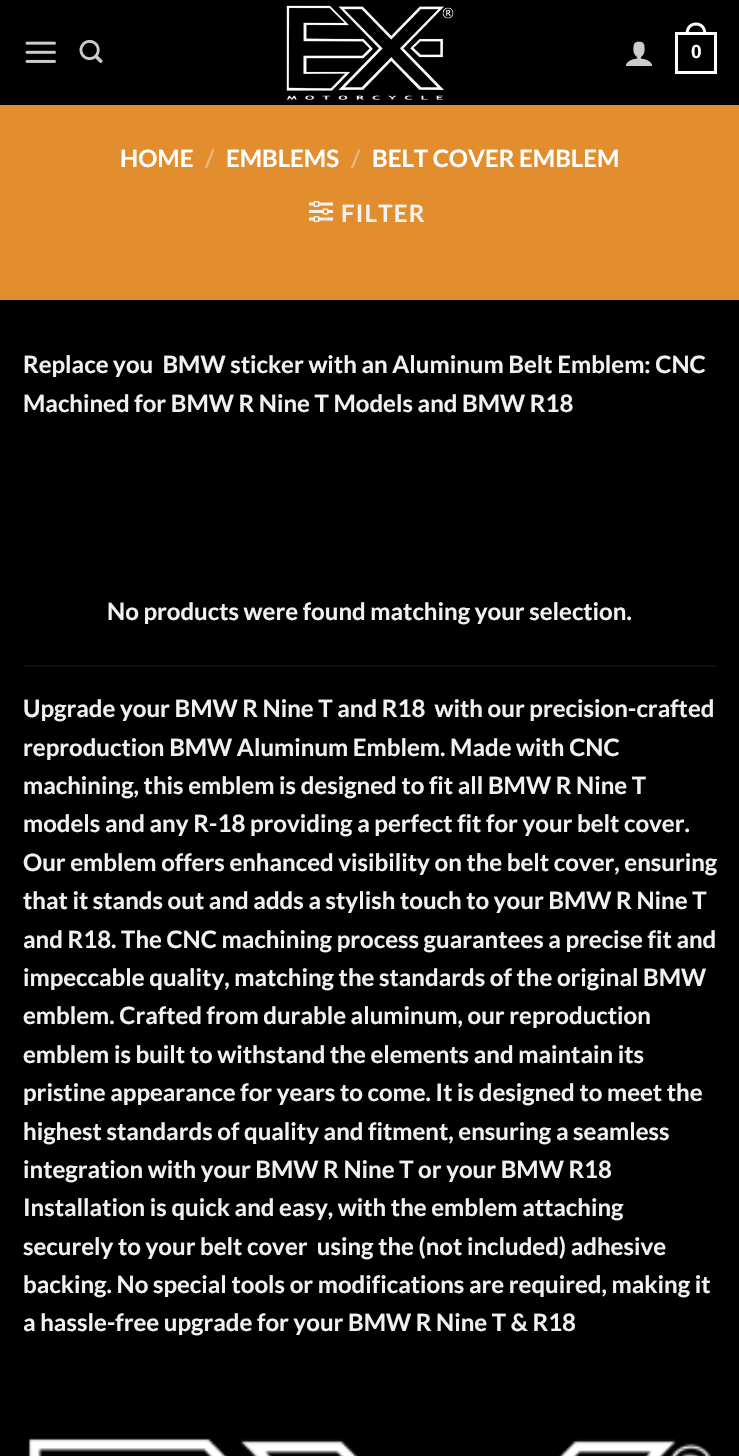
void draw(SkCanvas* canvas) {
	SkPaint paint;
	paint.setAntiAlias(true);
	auto spacedText = [&](const char* s, float x, float y, const SkFont& font, const SkPaint& ink, float letter, float word) {
		std::vector<SkGlyphID> glyphs(font.countText(s, strlen(s), SkTextEncoding::kUTF8));
		std::vector<float> xs(glyphs.size());
		font.textToGlyphs(s, strlen(s), SkTextEncoding::kUTF8, glyphs);
		font.getXPos(glyphs, xs, x);
		float extra = 0;
		for (size_t i = 0; i < glyphs.size(); i++) {
			xs[i] += extra;
			extra += letter + word * (glyphs[i] == font.unicharToGlyph(' '));
		}
		canvas->drawTextBlob(SkTextBlob::MakeFromPosHGlyphs(glyphs, xs, y, font), 0, 0, ink);
	};
	auto svgPath = [&](const char* data, bool evenOdd = false) {
		SkPath result = *SkParsePath::FromSVGString(data);
		if (evenOdd) result.setFillType(SkPathFillType::kEvenOdd);
		return result;
	};
	canvas->clear(0xff000000);
	canvas->drawImageRect(SkImages::DeferredFromEncodedData(SkData::MakeFromFileName("img1.png")), SkRect::MakeXYWH(25, 41, 31, 22), SkSamplingOptions());
	canvas->drawImageRect(SkImages::DeferredFromEncodedData(SkData::MakeFromFileName("img2.png")), SkRect::MakeXYWH(79, 39, 24, 24), SkSamplingOptions());
	canvas->drawImageRect(SkImages::DeferredFromEncodedData(SkData::MakeFromFileName("img3.png")), SkRect::MakeXYWH(286, 5, 168, 97), SkSamplingOptions());
	canvas->drawImageRect(SkImages::DeferredFromEncodedData(SkData::MakeFromFileName("img4.png")), SkRect::MakeXYWH(625, 41, 28, 25), SkSamplingOptions());
	paint.setStroke(true);
	paint.setStrokeWidth(3);
	paint.setColor(0xffffffff);
	canvas->drawRect(SkRect::MakeXYWH(676.5, 33.5, 39, 39), paint);
	paint.setStroke(false);
	canvas->drawPath(svgPath("M696 22.5C703 22.5 706.5 28 706.5 34.5H685.5C685.5 28 689 22.5 696 22.5ZM696 25.5C701.5 25.5 703.5 30 703.5 34.5H688.5C688.5 30 690.5 25.5 696 25.5Z", true), paint);
	SkFont f1(fontMgr->matchFamilyStyle("Liberation Sans", SkFontStyle::Bold()), 19);
	f1.setSubpixel(true);
	canvas->drawString("0", 691, 58, f1, paint);
	paint.setColor(0xffe28e2e);
	canvas->drawRect(SkRect::MakeXYWH(0, 105, 739, 195), paint);
	SkFont f2(fontMgr->matchFamilyStyle("Lato", SkFontStyle::Bold()), 24);
	f2.setSubpixel(true);
	paint.setColor(0xffffffff);
	canvas->drawString("HOME", 120, 167, f2, paint);
	paint.setColor(0xffecb677);
	canvas->drawString("/", 205, 167, f2, paint);
	paint.setColor(0xffffffff);
	canvas->drawString("EMBLEMS", 226, 167, f2, paint);
	paint.setColor(0xffecb677);
	canvas->drawString("/", 351, 167, f2, paint);
	paint.setColor(0xffffffff);
	canvas->drawString("BELT COVER EMBLEM", 372, 167, f2, paint);
	canvas->drawImageRect(SkImages::DeferredFromEncodedData(SkData::MakeFromFileName("img5.png")), SkRect::MakeXYWH(309, 201, 24, 21), SkSamplingOptions());
	paint.setColor(0xfff1f1f1);
	spacedText("FILTER", 341, 222, f2, paint, 1.25, 0);
	canvas->drawString("Replace you  BMW sticker with an Aluminum Belt Emblem: CNC", 23, 373, f2, paint);
	canvas->drawString("Machined for BMW R Nine T Models and BMW R18", 23, 412, f2, paint);
	canvas->drawString("No products were found matching your selection.", 107, 620, f2, paint);
	paint.setColor(0xff0d0d0d);
	canvas->drawRect(SkRect::MakeXYWH(23, 665, 694, 2), paint);
	paint.setColor(0xfff1f1f1);
	canvas->drawString("Upgrade your BMW R Nine T and R18  with our precision-crafted", 23, 717, f2, paint);
	canvas->drawString("reproduction BMW Aluminum Emblem. Made with CNC", 23, 756, f2, paint);
	canvas->drawString("machining, this emblem is designed to fit all BMW R Nine T", 23, 794, f2, paint);
	canvas->drawString("models and any R-18 providing a perfect fit for your belt cover.", 23, 832, f2, paint);
	canvas->drawString("Our emblem offers enhanced visibility on the belt cover, ensuring", 23, 871, f2, paint);
	canvas->drawString("that it stands out and adds a stylish touch to your BMW R Nine T", 23, 909, f2, paint);
	canvas->drawString("and R18. The CNC machining process guarantees a precise fit and", 23, 948, f2, paint);
	canvas->drawString("impeccable quality, matching the standards of the original BMW", 23, 986, f2, paint);
	canvas->drawString("emblem. Crafted from durable aluminum, our reproduction", 23, 1024, f2, paint);
	canvas->drawString("emblem is built to withstand the elements and maintain its", 23, 1063, f2, paint);
	canvas->drawString("pristine appearance for years to come. It is designed to meet the", 23, 1101, f2, paint);
	canvas->drawString("highest standards of quality and fitment, ensuring a seamless", 23, 1140, f2, paint);
	canvas->drawString("integration with your BMW R Nine T or your BMW R18", 23, 1178, f2, paint);
	canvas->drawString("Installation is quick and easy, with the emblem attaching", 23, 1216, f2, paint);
	canvas->drawString("securely to your belt cover  using the (not included) adhesive", 23, 1255, f2, paint);
	canvas->drawString("backing. No special tools or modifications are required, making it", 23, 1293, f2, paint);
	canvas->drawString("a hassle-free upgrade for your BMW R Nine T & R18", 23, 1331, f2, paint);
	canvas->drawImageRect(SkImages::DeferredFromEncodedData(SkData::MakeFromFileName("img6.png")), SkRect::MakeXYWH(28, 1438, 683, 18), SkSamplingOptions());
}
